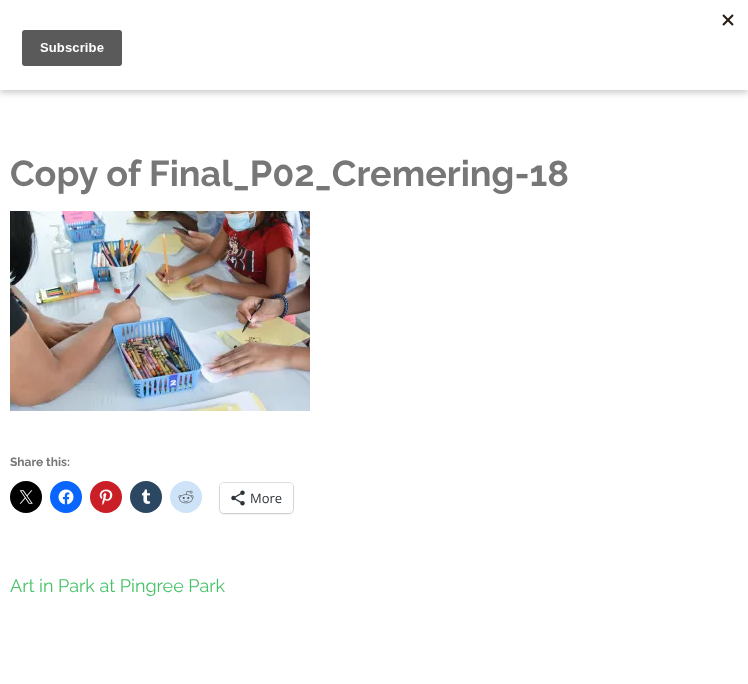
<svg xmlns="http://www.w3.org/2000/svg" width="748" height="684">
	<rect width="100%" height="100%" fill="#FFFFFF" />
	<rect x="0" y="3" width="748" height="90" fill="#000000" fill-opacity="0.2" filter="blur(3px)" />
	<rect x="0" y="0" width="748" height="90" fill="#FFFFFF" />
	<image x="22" y="14" width="712" height="52" href="assets/img1.png" />
	<text x="10" y="186" font-family="Raleway" font-size="36" font-weight="700" fill="#777777">Copy of Final_P02_Cremering-18</text>
	<image x="10" y="211" width="300" height="200" href="assets/img2.png" />
	<text x="10" y="466" font-family="Raleway" font-size="12" font-weight="700" fill="#777777">Share this:</text>
	<circle cx="26" cy="497" r="16" fill="#000000" />
	<image x="19" y="490" width="14" height="14" href="assets/img3.png" />
	<circle cx="66" cy="497" r="16" fill="#0866FF" />
	<image x="58" y="489" width="16" height="16" href="assets/img4.png" />
	<circle cx="106" cy="497" r="16" fill="#CA1F27" />
	<image x="99" y="489" width="14" height="16" href="assets/img5.png" />
	<circle cx="146" cy="497" r="16" fill="#2C4762" />
	<image x="141" y="489" width="10" height="15" href="assets/img6.png" />
	<circle cx="186" cy="497" r="16" fill="#CEE3F8" />
	<image x="178" y="490" width="16" height="14" href="assets/img7.png" />
	<rect x="219.5" y="482.5" width="74" height="31" rx="4.5" fill="none" stroke="#E0E0E0" />
	<rect x="220" y="484" width="73" height="30" rx="4" fill="#000000" fill-opacity="0.12" filter="blur(1px)" />
	<rect x="220" y="483" width="73" height="30" rx="4" fill="#FFFFFF" />
	<image x="231" y="490" width="14" height="16" href="assets/img8.png" />
	<text x="250" y="503" font-family="Open Sans" font-size="13" fill="#2C3338">More</text>
	<text x="10" y="592" font-family="Raleway" font-size="18" fill="#45C267">Art in Park at Pingree Park</text>
</svg>
